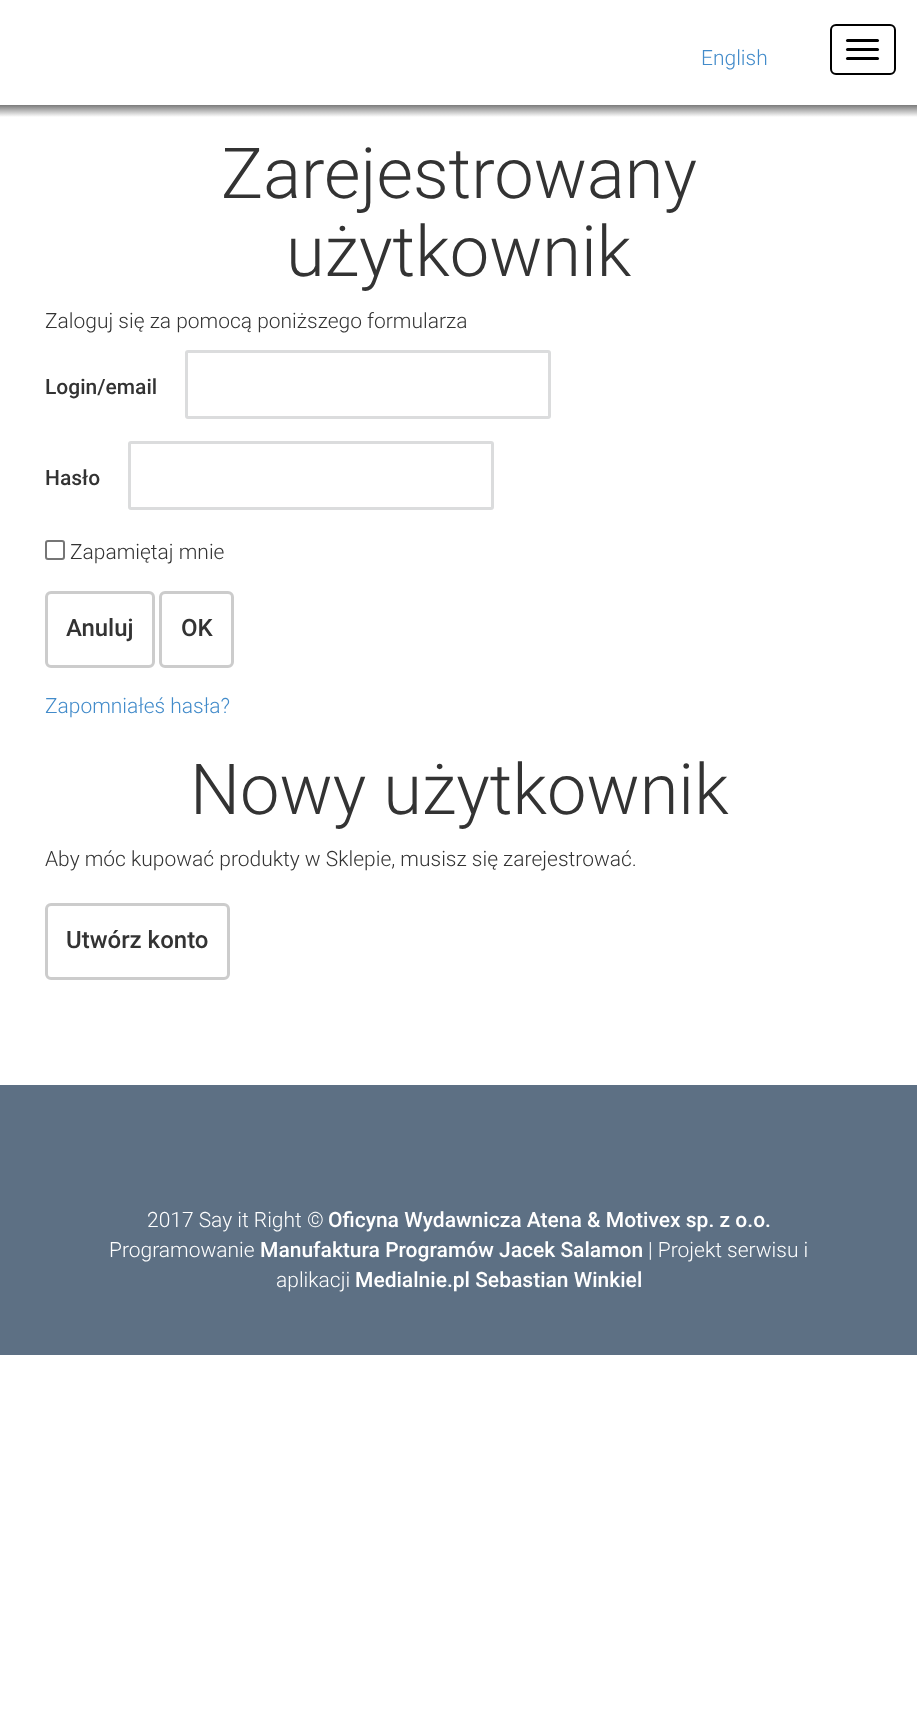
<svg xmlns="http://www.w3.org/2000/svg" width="917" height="1715">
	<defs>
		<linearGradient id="g1" gradientUnits="userSpaceOnUse" x1="459" y1="105" x2="459" y2="117"><stop offset="0" stop-color="#7A7A7A" /><stop offset="1" stop-color="#FFFFFF" /></linearGradient>
	</defs>
	<rect width="100%" height="100%" fill="#FFFFFF" />
	<text x="701" y="65" font-family="Roboto" font-size="21" font-weight="300" fill="#428BCA">English</text>
	<rect x="831" y="25" width="64" height="49" rx="5" fill="none" stroke="#000000" stroke-width="2" />
	<rect x="846" y="39" width="33" height="3" rx="1.5" fill="#000000" />
	<rect x="846" y="48" width="33" height="3" rx="1.5" fill="#000000" />
	<rect x="846" y="57" width="33" height="3" rx="1.5" fill="#000000" />
	<rect x="0" y="105" width="917" height="12" fill="url(#g1)" />
	<g font-family="Roboto" font-size="70.5" font-weight="300" fill="#333333">
		<text x="221" y="198">Zarejestrowany</text>
		<text x="286" y="276">użytkownik</text>
	</g>
	<text x="45" y="328" font-family="Roboto" font-size="21" font-weight="300" fill="#333333">Zaloguj się za pomocą poniższego formularza</text>
	<text x="45" y="394" font-family="Roboto" font-size="21" font-weight="500" fill="#333333">Login/email</text>
	<rect x="186.5" y="351.5" width="363" height="66" rx="1.5" fill="none" stroke="#DBDCDD" stroke-width="3" />
	<text x="45" y="485" font-family="Roboto" font-size="21" font-weight="500" fill="#333333">Hasło</text>
	<rect x="129.5" y="442.5" width="363" height="66" rx="1.5" fill="none" stroke="#DBDCDD" stroke-width="3" />
	<rect x="46" y="541" width="18" height="18" rx="2" fill="none" stroke="#767676" stroke-width="2" />
	<text x="70" y="559" font-family="Roboto" font-size="21" font-weight="300" fill="#333333">Zapamiętaj mnie</text>
	<rect x="46.5" y="592.5" width="107" height="74" rx="4.5" fill="none" stroke="#CCCCCC" stroke-width="3" />
	<text x="66" y="636" font-family="Roboto" font-size="24" font-weight="500" fill="#333333">Anuluj</text>
	<rect x="160.5" y="592.5" width="72" height="74" rx="4.5" fill="none" stroke="#CCCCCC" stroke-width="3" />
	<text x="181" y="636" font-family="Roboto" font-size="24" font-weight="500" fill="#333333">OK</text>
	<text x="45" y="713" font-family="Roboto" font-size="21" font-weight="300" fill="#428BCA">Zapomniałeś hasła?</text>
	<text x="190" y="814" font-family="Roboto" font-size="70.5" font-weight="300" fill="#333333">Nowy użytkownik</text>
	<text x="45" y="866" font-family="Roboto" font-size="21" font-weight="300" fill="#333333">Aby móc kupować produkty w Sklepie, musisz się zarejestrować.</text>
	<rect x="46.5" y="904.5" width="182" height="74" rx="4.5" fill="none" stroke="#CCCCCC" stroke-width="3" />
	<text x="66" y="948" font-family="Roboto" font-size="24" font-weight="500" fill="#333333">Utwórz konto</text>
	<rect x="0" y="1085" width="917" height="270" fill="#5D7084" />
	<text x="147" y="1227" font-family="Roboto" font-size="21" font-weight="300" fill="#FFFFFF">2017 Say it Right ©</text>
	<text x="328" y="1227" font-family="Roboto" font-size="21" font-weight="500" fill="#FFFFFF">Oficyna Wydawnicza Atena &amp; Motivex sp. z o.o.</text>
	<text x="109" y="1257" font-family="Roboto" font-size="21" font-weight="300" fill="#FFFFFF">Programowanie</text>
	<text x="260" y="1257" font-family="Roboto" font-size="21" font-weight="500" fill="#FFFFFF">Manufaktura Programów Jacek Salamon</text>
	<g font-family="Roboto" font-size="21" font-weight="300" fill="#FFFFFF">
		<text x="648" y="1257">| Projekt serwisu i</text>
		<text x="276" y="1287">aplikacji</text>
	</g>
	<text x="355" y="1287" font-family="Roboto" font-size="21" font-weight="500" fill="#FFFFFF">Medialnie.pl Sebastian Winkiel</text>
</svg>
